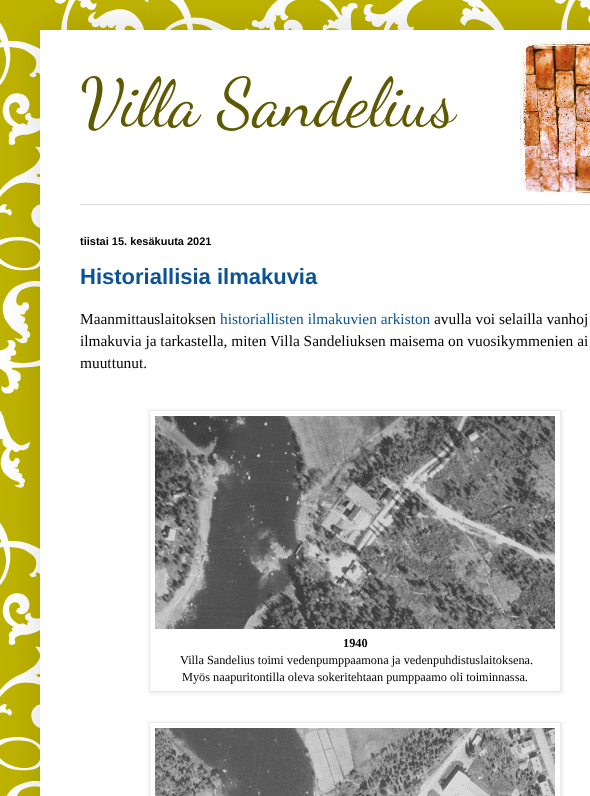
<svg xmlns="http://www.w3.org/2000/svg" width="590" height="796">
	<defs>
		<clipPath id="clip1"><path d="M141 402H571V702H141ZM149 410H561V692H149Z" clip-rule="evenodd" /></clipPath>
		<clipPath id="clip2"><path d="M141 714H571V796H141ZM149 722H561V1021H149Z" clip-rule="evenodd" /></clipPath>
	</defs>
	<rect width="100%" height="100%" fill="#FFFFFF" />
	<image x="0" y="0" width="590" height="796" href="assets/img1.png" />
	<rect x="40" y="30" width="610" height="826" fill="#000000" fill-opacity="0.15" filter="blur(20px)" />
	<rect x="40" y="30" width="550" height="766" fill="#FFFFFF" />
	<image x="520" y="41" width="70" height="154" href="assets/img2.png" />
	<text x="80" y="125" font-family="Dancing Script" font-size="68" fill="#5F5900">Villa Sandelius</text>
	<rect x="80" y="204" width="510" height="1" fill="#DEDEDE" />
	<text x="80" y="245" font-family="Liberation Sans" font-size="11" font-weight="700" fill="#000000">tiistai 15. kesäkuuta 2021</text>
	<text x="80" y="284" font-family="Liberation Sans" font-size="22" font-weight="700" fill="#0B5394">Historiallisia ilmakuvia</text>
	<text x="80" y="324" font-family="Liberation Serif" font-size="15.4" fill="#000000">Maanmittauslaitoksen</text>
	<text x="220" y="324" font-family="Liberation Serif" font-size="15.4" fill="#0B5394">historiallisten ilmakuvien arkiston</text>
	<g font-family="Liberation Serif" font-size="15.4" fill="#000000">
		<text x="434" y="324">avulla voi selailla vanhoj</text>
		<text x="80" y="346">ilmakuvia ja tarkastella, miten Villa Sandeliuksen maisema on vuosikymmenien ai</text>
		<text x="80" y="368">muuttunut.</text>
	</g>
	<g clip-path="url(#clip1)">
		<rect x="150" y="411" width="412" height="282" fill="#000000" fill-opacity="0.1" filter="blur(2.5px)" />
	</g>
	<rect x="149.5" y="410.5" width="411" height="281" fill="none" stroke="#EAEAEA" />
	<image x="155" y="416" width="400" height="213" href="assets/img3.png" />
	<text x="343" y="647" font-family="Liberation Serif" font-size="12.3" font-weight="700" fill="#000000">1940</text>
	<g font-family="Liberation Serif" font-size="12.3" fill="#000000">
		<text x="180" y="664">Villa Sandelius toimi vedenpumppaamona ja vedenpuhdistuslaitoksena.</text>
		<text x="182" y="681">Myös naapuritontilla oleva sokeritehtaan pumppaamo oli toiminnassa.</text>
	</g>
	<g clip-path="url(#clip2)">
		<rect x="150" y="723" width="412" height="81" fill="#000000" fill-opacity="0.1" filter="blur(2.5px)" />
	</g>
	<rect x="149.5" y="722.5" width="411" height="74" fill="none" stroke="#EAEAEA" />
	<image x="155" y="728" width="400" height="68" href="assets/img4.png" />
</svg>
